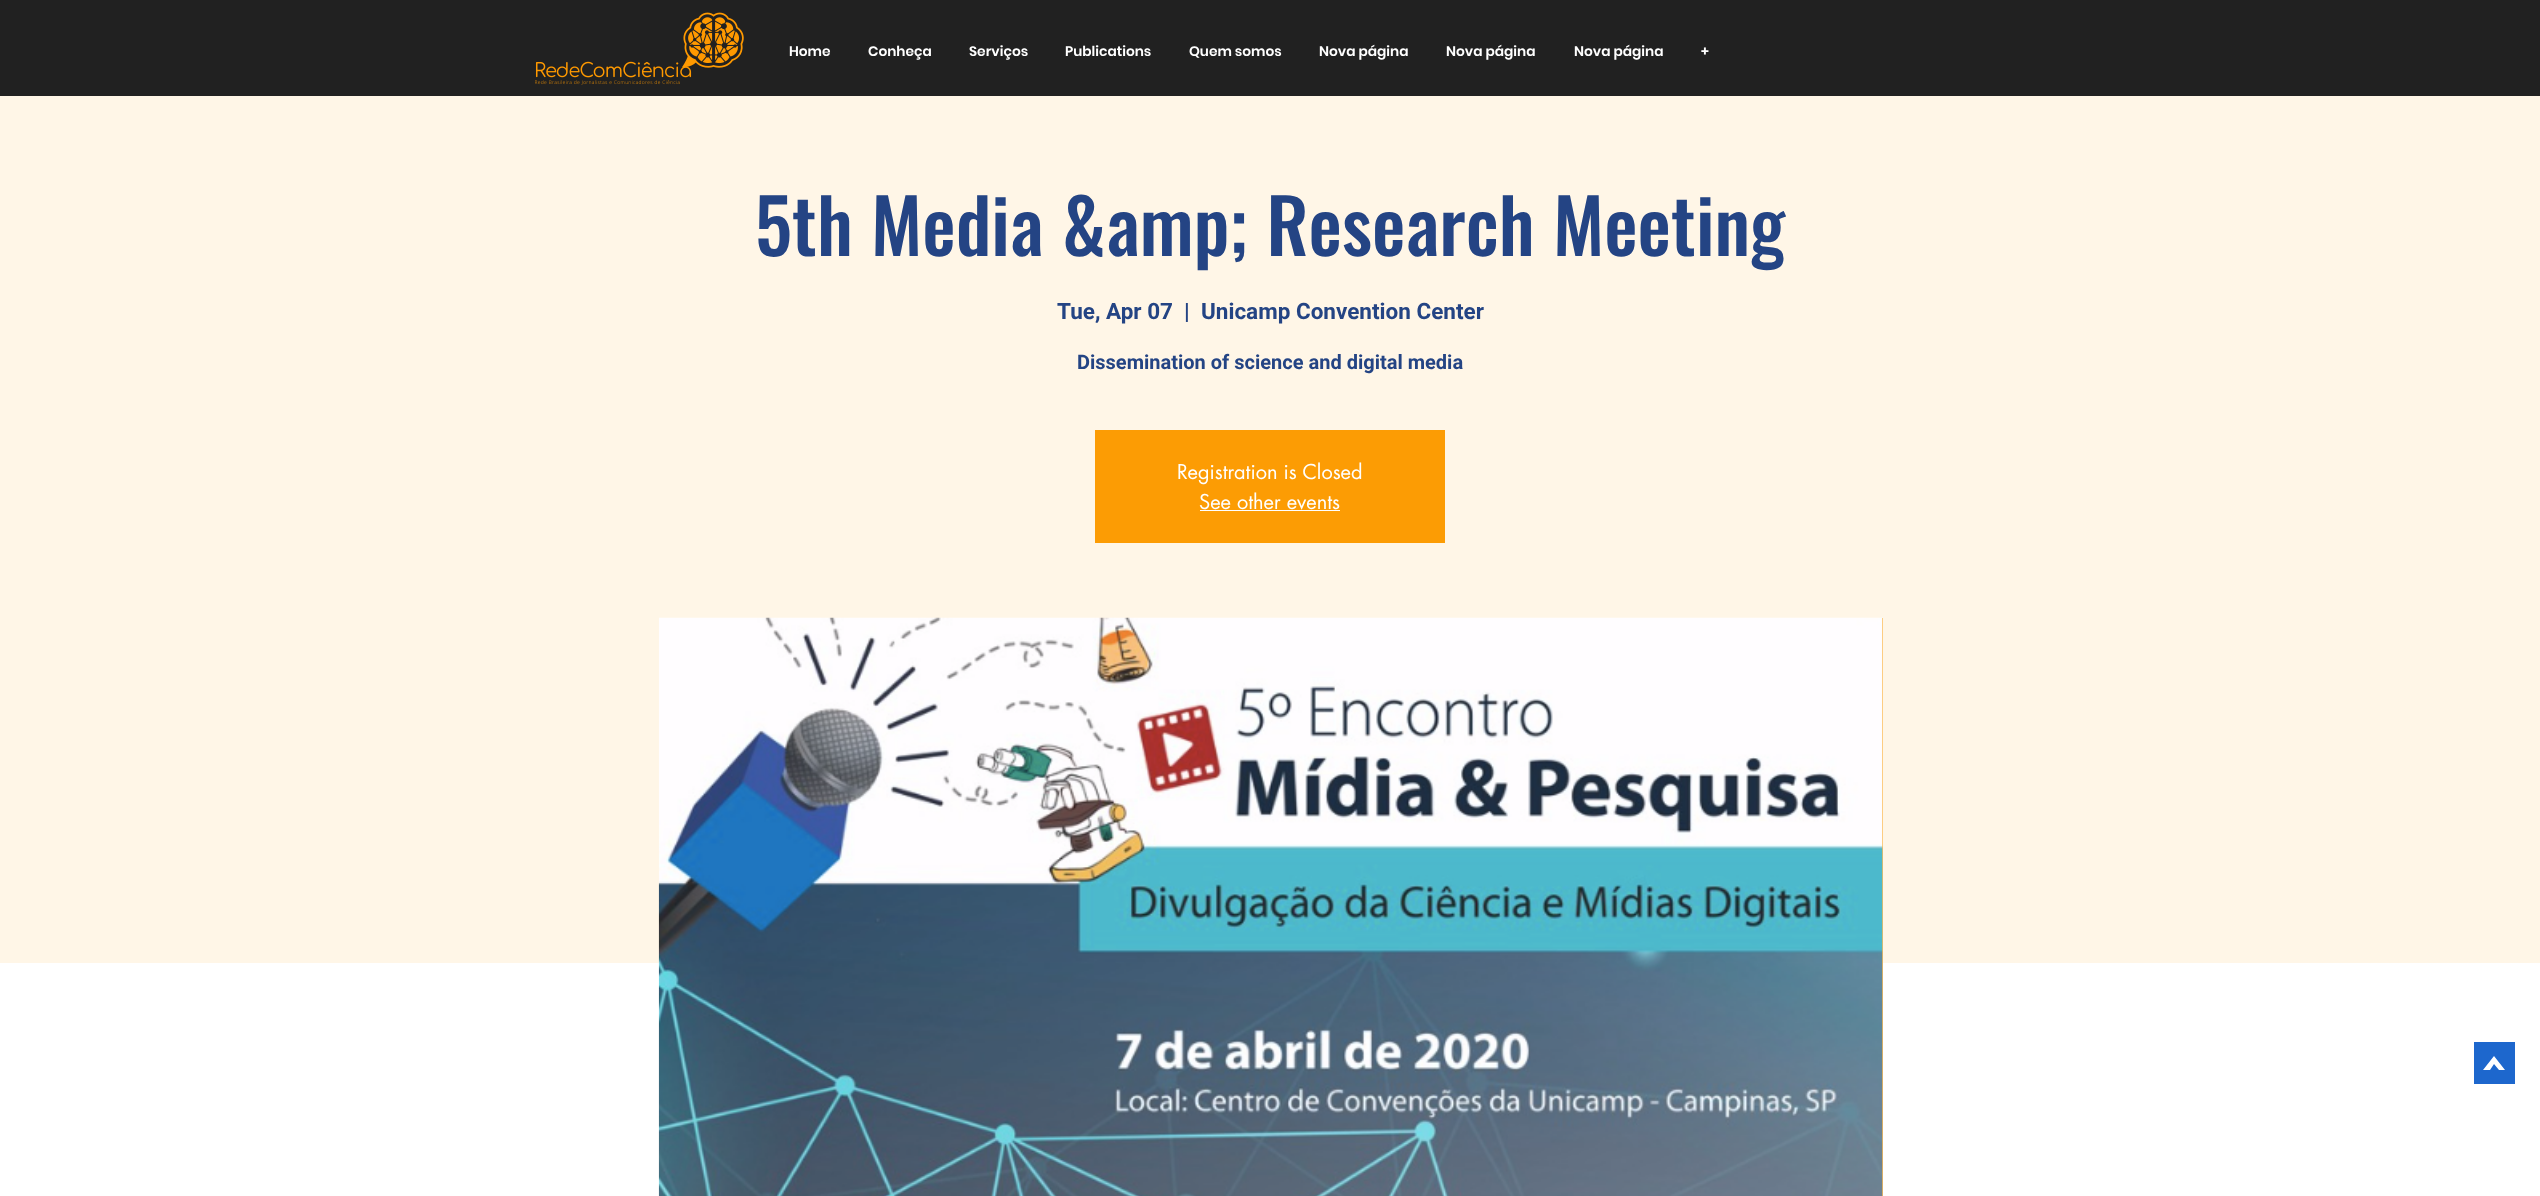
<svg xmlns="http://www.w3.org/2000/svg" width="2540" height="1196">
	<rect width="100%" height="100%" fill="#FFFFFF" />
	<rect x="0" y="0" width="2540" height="96" fill="#212121" />
	<image x="535" y="12" width="209" height="73" href="assets/img1.png" />
	<g font-family="Poppins" font-size="13.75" font-weight="600" fill="#FFFFFF">
		<text x="789" y="56">Home</text>
		<text x="868" y="56">Conheça</text>
		<text x="969" y="56">Serviços</text>
		<text x="1065" y="56">Publications</text>
		<text x="1189" y="56">Quem somos</text>
		<text x="1319" y="56">Nova página</text>
		<text x="1446" y="56">Nova página</text>
		<text x="1574" y="56">Nova página</text>
		<text x="1701" y="56">+</text>
	</g>
	<rect x="0" y="96" width="2540" height="867" fill="#FFF6E7" />
	<text x="755" y="256" font-family="Oswald" font-size="75" font-weight="500" fill="#244484">5th Media &amp;amp; Research Meeting</text>
	<g font-family="Roboto" font-size="22.5" font-weight="700" fill="#244484">
		<text x="1057" y="319">Tue, Apr 07</text>
		<text x="1184" y="319">|</text>
		<text x="1201" y="319">Unicamp Convention Center</text>
	</g>
	<text x="1077" y="369" font-family="Roboto" font-size="20" font-weight="700" fill="#244484">Dissemination of science and digital media</text>
	<rect x="1095" y="430" width="350" height="113" fill="#FC9C04" />
	<g font-family="futura" font-size="20" fill="#FFFFFF">
		<text x="1177" y="479">Registration is Closed</text>
		<text x="1199" y="509">See other events</text>
	</g>
	<rect x="1200" y="510" width="140" height="1" fill="#FFFFFF" />
	<rect x="1882" y="618" width="1" height="578" fill="#FDBD58" />
	<image x="658" y="617" width="1225" height="579" href="assets/img2.png" />
	<path d="M2474 1042V1084H2515V1042ZM2499 1070L2494 1064L2490 1070H2483L2494 1056L2505 1070Z" fill="#1D67CD" />
</svg>
